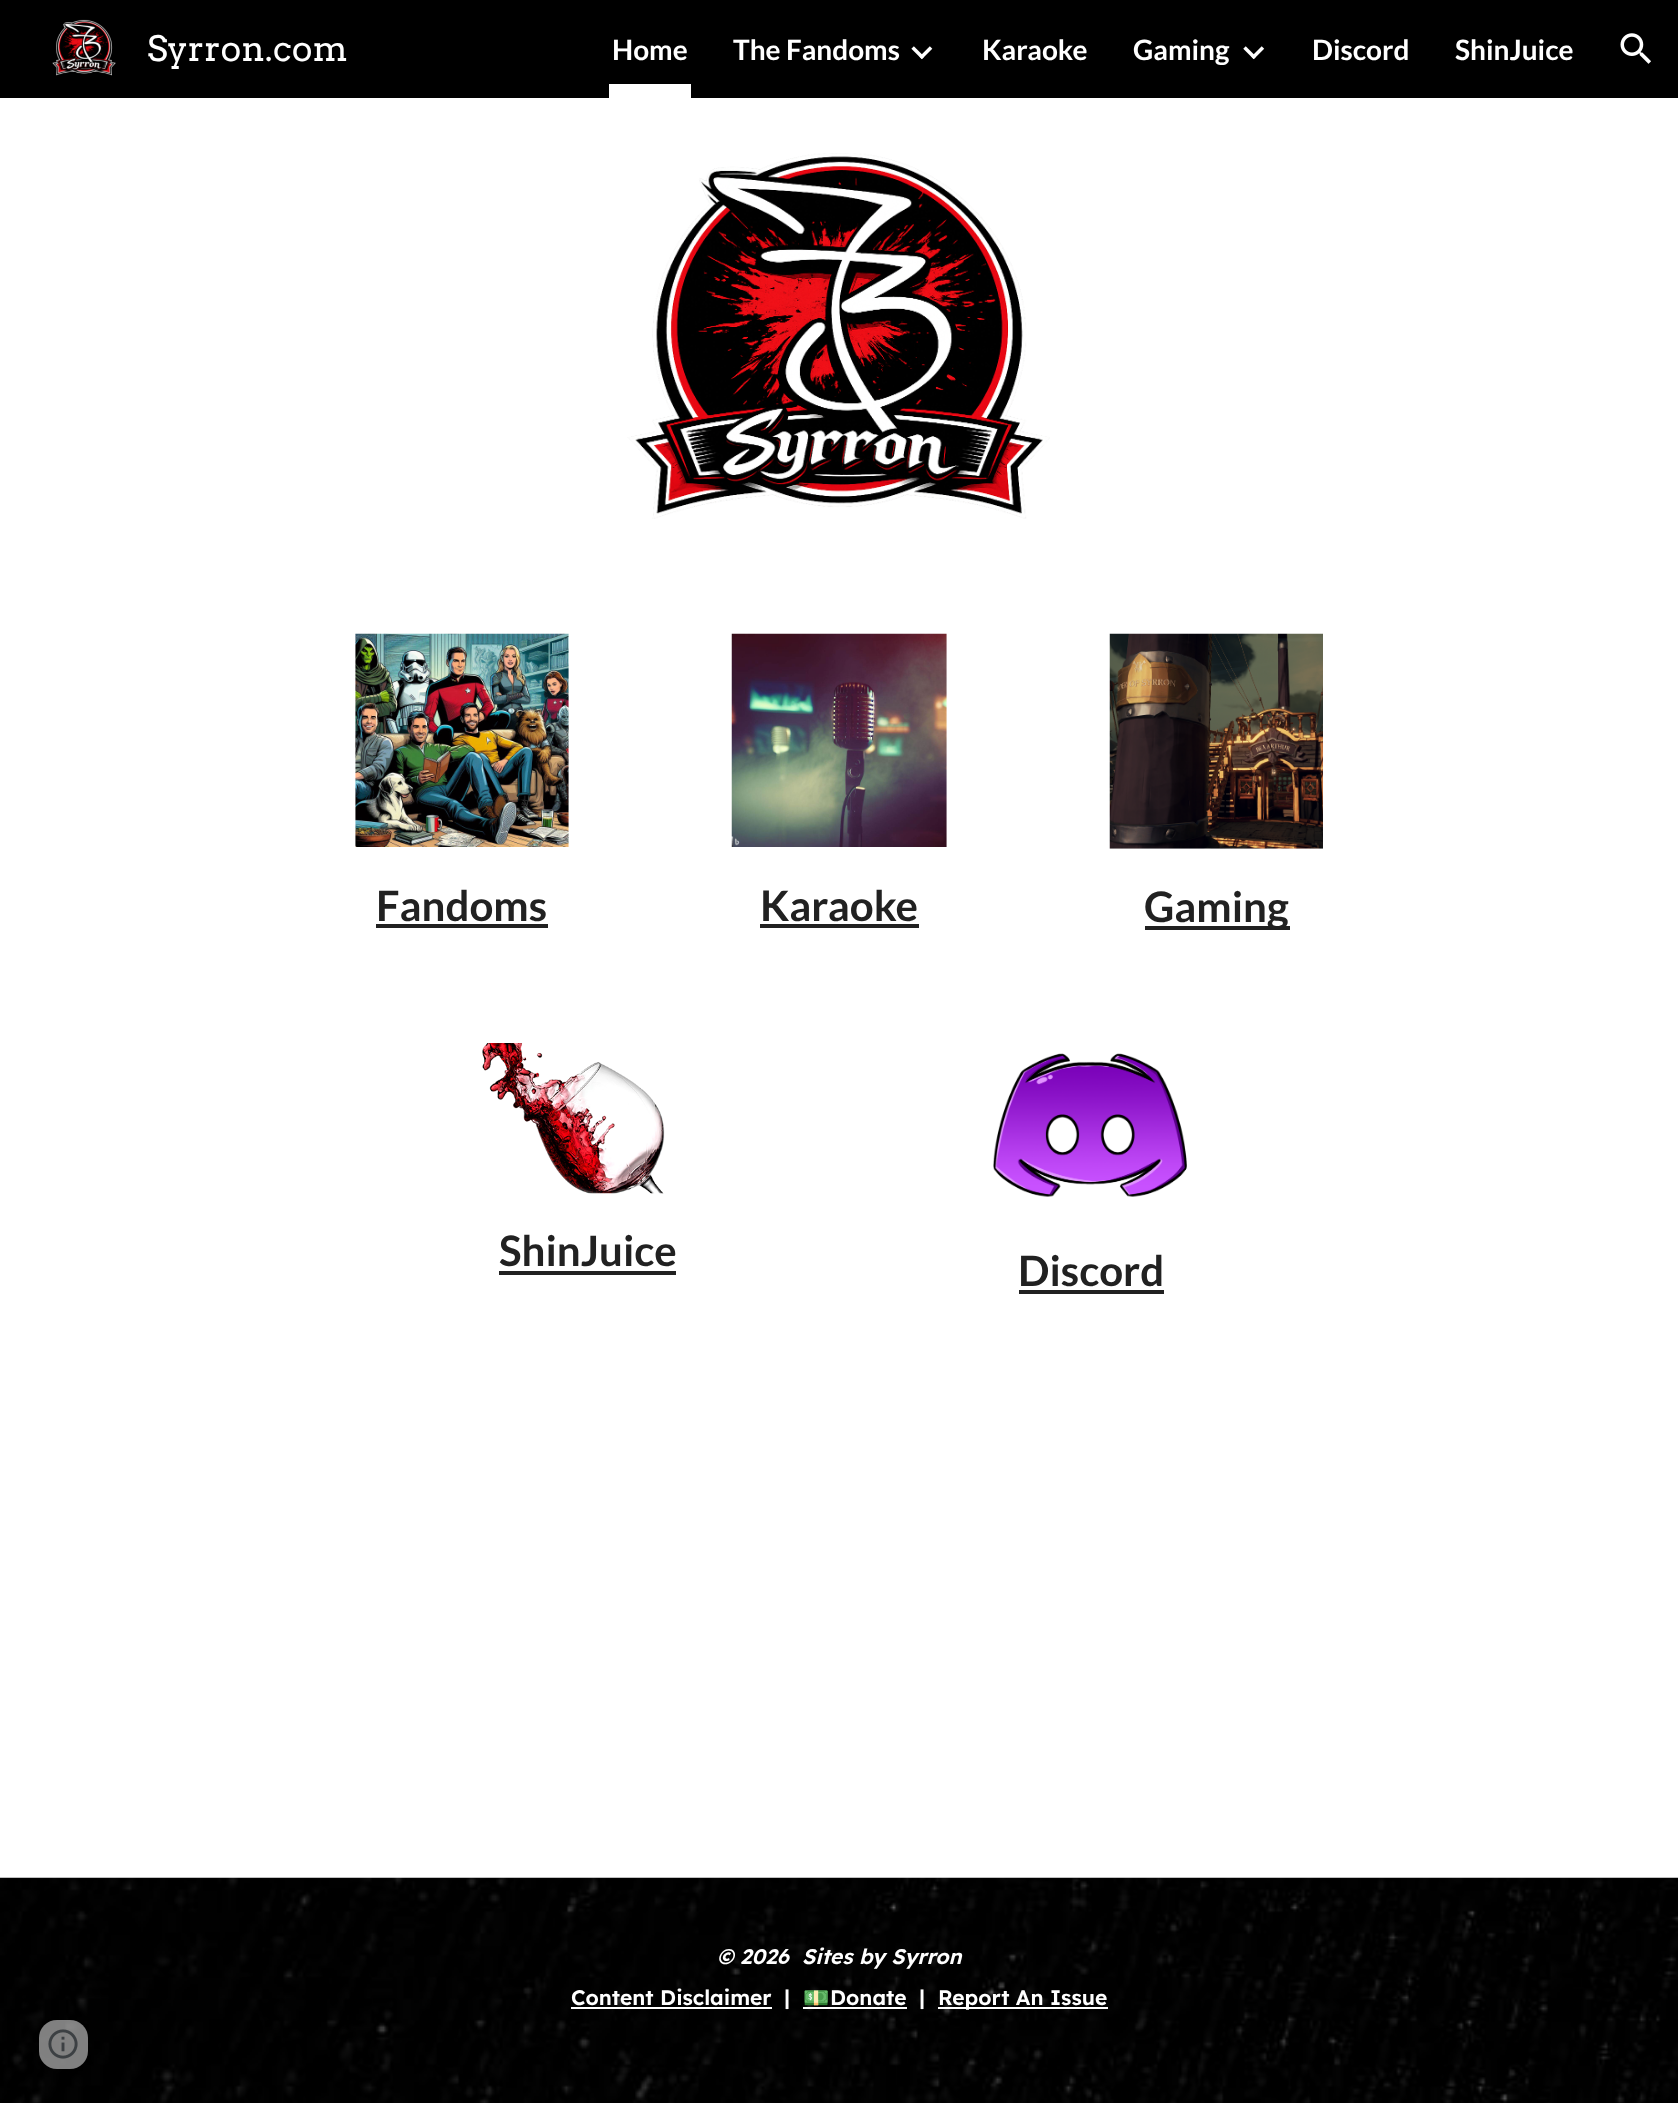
<svg xmlns="http://www.w3.org/2000/svg" width="1678" height="2103">
	<rect width="100%" height="100%" fill="#FFFFFF" />
	<rect x="0" y="0" width="1678" height="98" fill="#000000" />
	<image x="52" y="19" width="64" height="57" href="assets/img1.png" />
	<text x="147" y="61" font-family="Arvo" font-size="35" fill="#FFFFFF">Syrron.com</text>
	<rect x="609" y="84" width="82" height="14" fill="#FFFFFF" />
	<g font-family="Lato" font-size="28" font-weight="700" fill="#FFFFFF">
		<text x="612" y="60">Home</text>
		<text x="733" y="60">The Fandoms</text>
	</g>
	<image x="911" y="46" width="22" height="14" href="assets/img2.png" />
	<g font-family="Lato" font-size="28" font-weight="700" fill="#FFFFFF">
		<text x="982" y="60">Karaoke</text>
		<text x="1133" y="60">Gaming</text>
	</g>
	<image x="1243" y="46" width="22" height="14" href="assets/img3.png" />
	<g font-family="Lato" font-size="28" font-weight="700" fill="#FFFFFF">
		<text x="1312" y="60">Discord</text>
		<text x="1455" y="60">ShinJuice</text>
	</g>
	<image x="1620" y="33" width="31" height="31" href="assets/img4.png" />
	<image x="627" y="153" width="423" height="366" href="assets/img5.png" />
	<image x="355" y="633" width="214" height="214" href="assets/img6.png" />
	<text x="376" y="921" font-family="Lato" font-size="42" font-weight="700" fill="#212121">Fandoms</text>
	<rect x="376" y="924" width="172" height="4" fill="#212121" />
	<image x="731" y="633" width="216" height="214" href="assets/img7.png" />
	<text x="760" y="921" font-family="Lato" font-size="42" font-weight="700" fill="#212121">Karaoke</text>
	<rect x="760" y="924" width="159" height="4" fill="#212121" />
	<image x="1109" y="633" width="214" height="216" href="assets/img8.png" />
	<rect x="1145" y="926" width="145" height="4" fill="#212121" />
	<text x="1144" y="922" font-family="Lato" font-size="42" font-weight="700" fill="#212121">Gaming</text>
	<image x="482" y="1043" width="183" height="151" href="assets/img9.png" />
	<text x="499" y="1266" font-family="Lato" font-size="42" font-weight="700" fill="#212121">ShinJuice</text>
	<rect x="499" y="1271" width="177" height="4" fill="#212121" />
	<image x="993" y="1053" width="194" height="144" href="assets/img10.png" />
	<text x="1018" y="1286" font-family="Lato" font-size="42" font-weight="700" fill="#212121">Discord</text>
	<rect x="1019" y="1290" width="145" height="4" fill="#212121" />
	<image x="0" y="1877" width="1678" height="226" href="assets/img11.png" />
	<g font-family="Lexend" font-size="21" font-weight="600" font-style="italic" fill="#FFFFFF">
		<text x="717" y="1964">© 2026</text>
		<text x="802" y="1964">Sites by Syrron</text>
	</g>
	<text x="571" y="2005" font-family="Lexend" font-size="21" font-weight="600" fill="#FFFFFF">Content Disclaimer</text>
	<rect x="571" y="2007" width="201" height="2" fill="#FFFFFF" />
	<text x="784" y="2005" font-family="Lexend" font-size="21" font-weight="600" fill="#FFFFFF">|</text>
	<rect x="803" y="2007" width="104" height="2" fill="#FFFFFF" />
	<text x="803" y="2005" font-family="Noto Color Emoji" font-size="21" font-weight="700" fill="#FFFFFF">💵</text>
	<g font-family="Lexend" font-size="21" font-weight="600" fill="#FFFFFF">
		<text x="830" y="2005">Donate</text>
		<text x="919" y="2005">|</text>
	</g>
	<rect x="938" y="2007" width="170" height="2" fill="#FFFFFF" />
	<text x="938" y="2005" font-family="Lexend" font-size="21" font-weight="600" fill="#FFFFFF">Report An Issue</text>
	<rect x="39" y="2020" width="49" height="49" rx="18" fill="#FFFFFF" fill-opacity="0.5" />
	<image x="48" y="2029" width="30" height="30" href="assets/img12.png" />
</svg>
